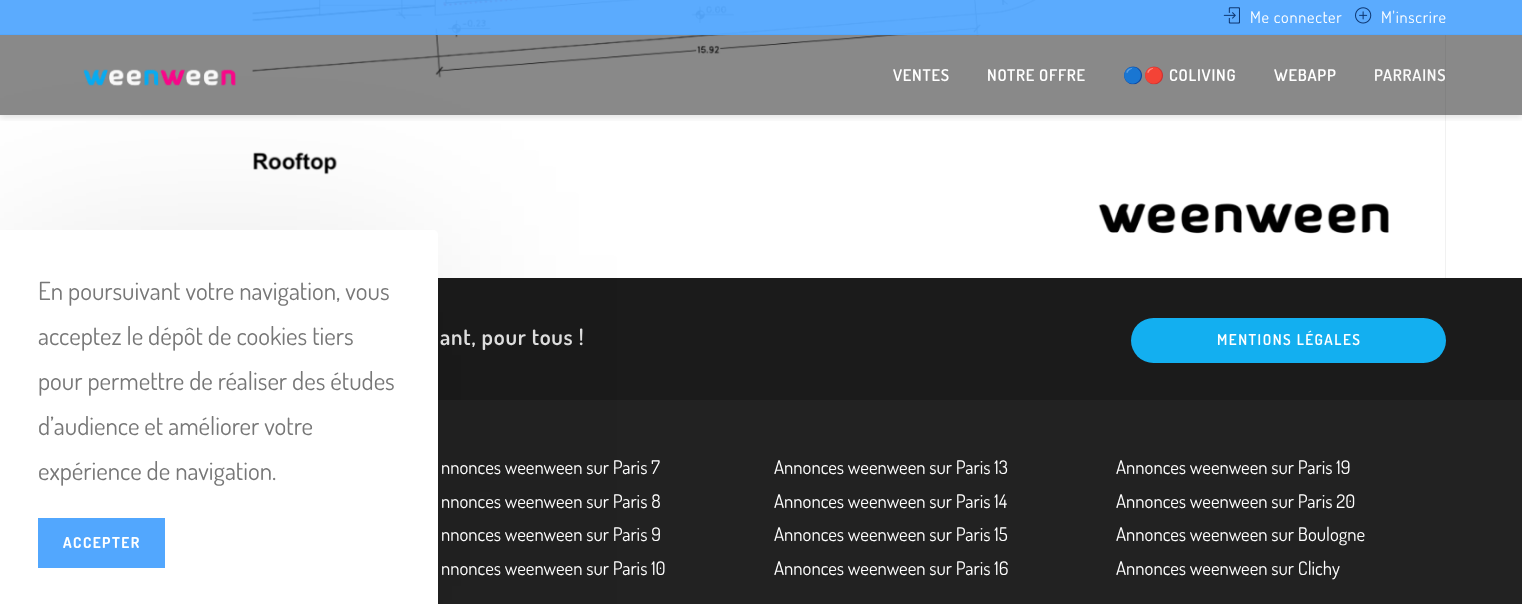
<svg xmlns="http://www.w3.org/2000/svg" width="1522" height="604">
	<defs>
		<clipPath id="clip1"><rect x="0" y="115" width="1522" height="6" /></clipPath>
	</defs>
	<rect width="100%" height="100%" fill="#FFFFFF" />
	<image x="251" y="0" width="1138" height="234" href="assets/img1.png" />
	<rect x="1445" y="0" width="1" height="278" fill="#F1F1F1" />
	<g clip-path="url(#clip1)">
		<rect x="0" y="38" width="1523" height="80" fill="#000000" fill-opacity="0.1" filter="blur(3px)" />
	</g>
	<rect x="0" y="0" width="1522" height="35" fill="#52A7FE" fill-opacity="0.95" />
	<rect x="0" y="34" width="1522" height="1" fill="#52A7FE" fill-opacity="0.95" />
	<rect x="0" y="35" width="1522" height="80" fill="#050505" fill-opacity="0.47" />
	<image x="83" y="69" width="153" height="17" href="assets/img4.png" />
	<rect x="438" y="278" width="1084" height="122" fill="#1B1B1B" />
	<rect x="438" y="400" width="1084" height="204" fill="#222222" />
	<rect x="0" y="255" width="438" height="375" rx="5" fill="#000000" fill-opacity="0.1" filter="blur(94px)" />
	<path d="M0 230H433C436 230 438 232 438 235V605H0Z" fill="#FFFFFF" />
	<g font-family="Dosis" font-size="25" fill="#777777">
		<text x="38" y="300">En poursuivant votre navigation, vous</text>
		<text x="38" y="345">acceptez le dépôt de cookies tiers</text>
		<text x="38" y="390">pour permettre de réaliser des études</text>
		<text x="38" y="435">d’audience et améliorer votre</text>
		<text x="38" y="480">expérience de navigation.</text>
	</g>
	<rect x="38" y="518" width="127" height="50" fill="#52A7FE" />
	<text x="63" y="548" font-family="Dosis" font-size="15" font-weight="700" letter-spacing="1.5" fill="#FFFFFF">ACCEPTER</text>
	<image x="1223" y="7" width="17" height="17" href="assets/img2.png" />
	<text x="1250" y="23" font-family="Dosis" font-size="16.25" letter-spacing="0.75" fill="#FFFFFF">Me connecter</text>
	<image x="1355" y="7" width="17" height="17" href="assets/img3.png" />
	<text x="1381" y="23" font-family="Dosis" font-size="16.25" letter-spacing="0.75" fill="#FFFFFF">M'inscrire</text>
	<g font-family="Dosis" font-size="16.25" font-weight="600" letter-spacing="0.75" fill="#FFFFFF">
		<text x="893" y="81">VENTES</text>
		<text x="987" y="81">NOTRE OFFRE</text>
	</g>
	<text x="1123" y="81" font-family="Noto Color Emoji" font-size="16.25" font-weight="700" letter-spacing="0.75" fill="#FFFFFF">🔵🔴</text>
	<g font-family="Dosis" font-size="16.25" font-weight="600" letter-spacing="0.75" fill="#FFFFFF">
		<text x="1169" y="81">COLIVING</text>
		<text x="1274" y="81">WEBAPP</text>
	</g>
	<text x="1374" y="81" font-family="Dosis" font-size="16.25" font-weight="600" letter-spacing="0.75" fill="#F9F9F9">PARRAINS</text>
	<text x="440" y="345" font-family="Dosis" font-size="22.5" font-weight="600" letter-spacing="0.75" fill="#DDDDDD">ant, pour tous !</text>
	<rect x="1131" y="318" width="315" height="45" rx="22.5" fill="#13AFF0" />
	<text x="1217" y="345" font-family="Dosis" font-size="15" font-weight="600" letter-spacing="1.5" fill="#FFFFFF">MENTIONS LÉGALES</text>
	<g font-family="Dosis" font-size="18.75" fill="#FFFFFF">
		<text x="441" y="474">nnonces weenween sur Paris 7</text>
		<text x="441" y="508">nnonces weenween sur Paris 8</text>
		<text x="441" y="541">nnonces weenween sur Paris 9</text>
		<text x="441" y="575">nnonces weenween sur Paris 10</text>
		<text x="774" y="474">Annonces weenween sur Paris 13</text>
		<text x="774" y="508">Annonces weenween sur Paris 14</text>
		<text x="774" y="541">Annonces weenween sur Paris 15</text>
		<text x="774" y="575">Annonces weenween sur Paris 16</text>
		<text x="1116" y="474">Annonces weenween sur Paris 19</text>
		<text x="1116" y="508">Annonces weenween sur Paris 20</text>
		<text x="1116" y="541">Annonces weenween sur Boulogne</text>
		<text x="1116" y="575">Annonces weenween sur Clichy</text>
	</g>
</svg>
